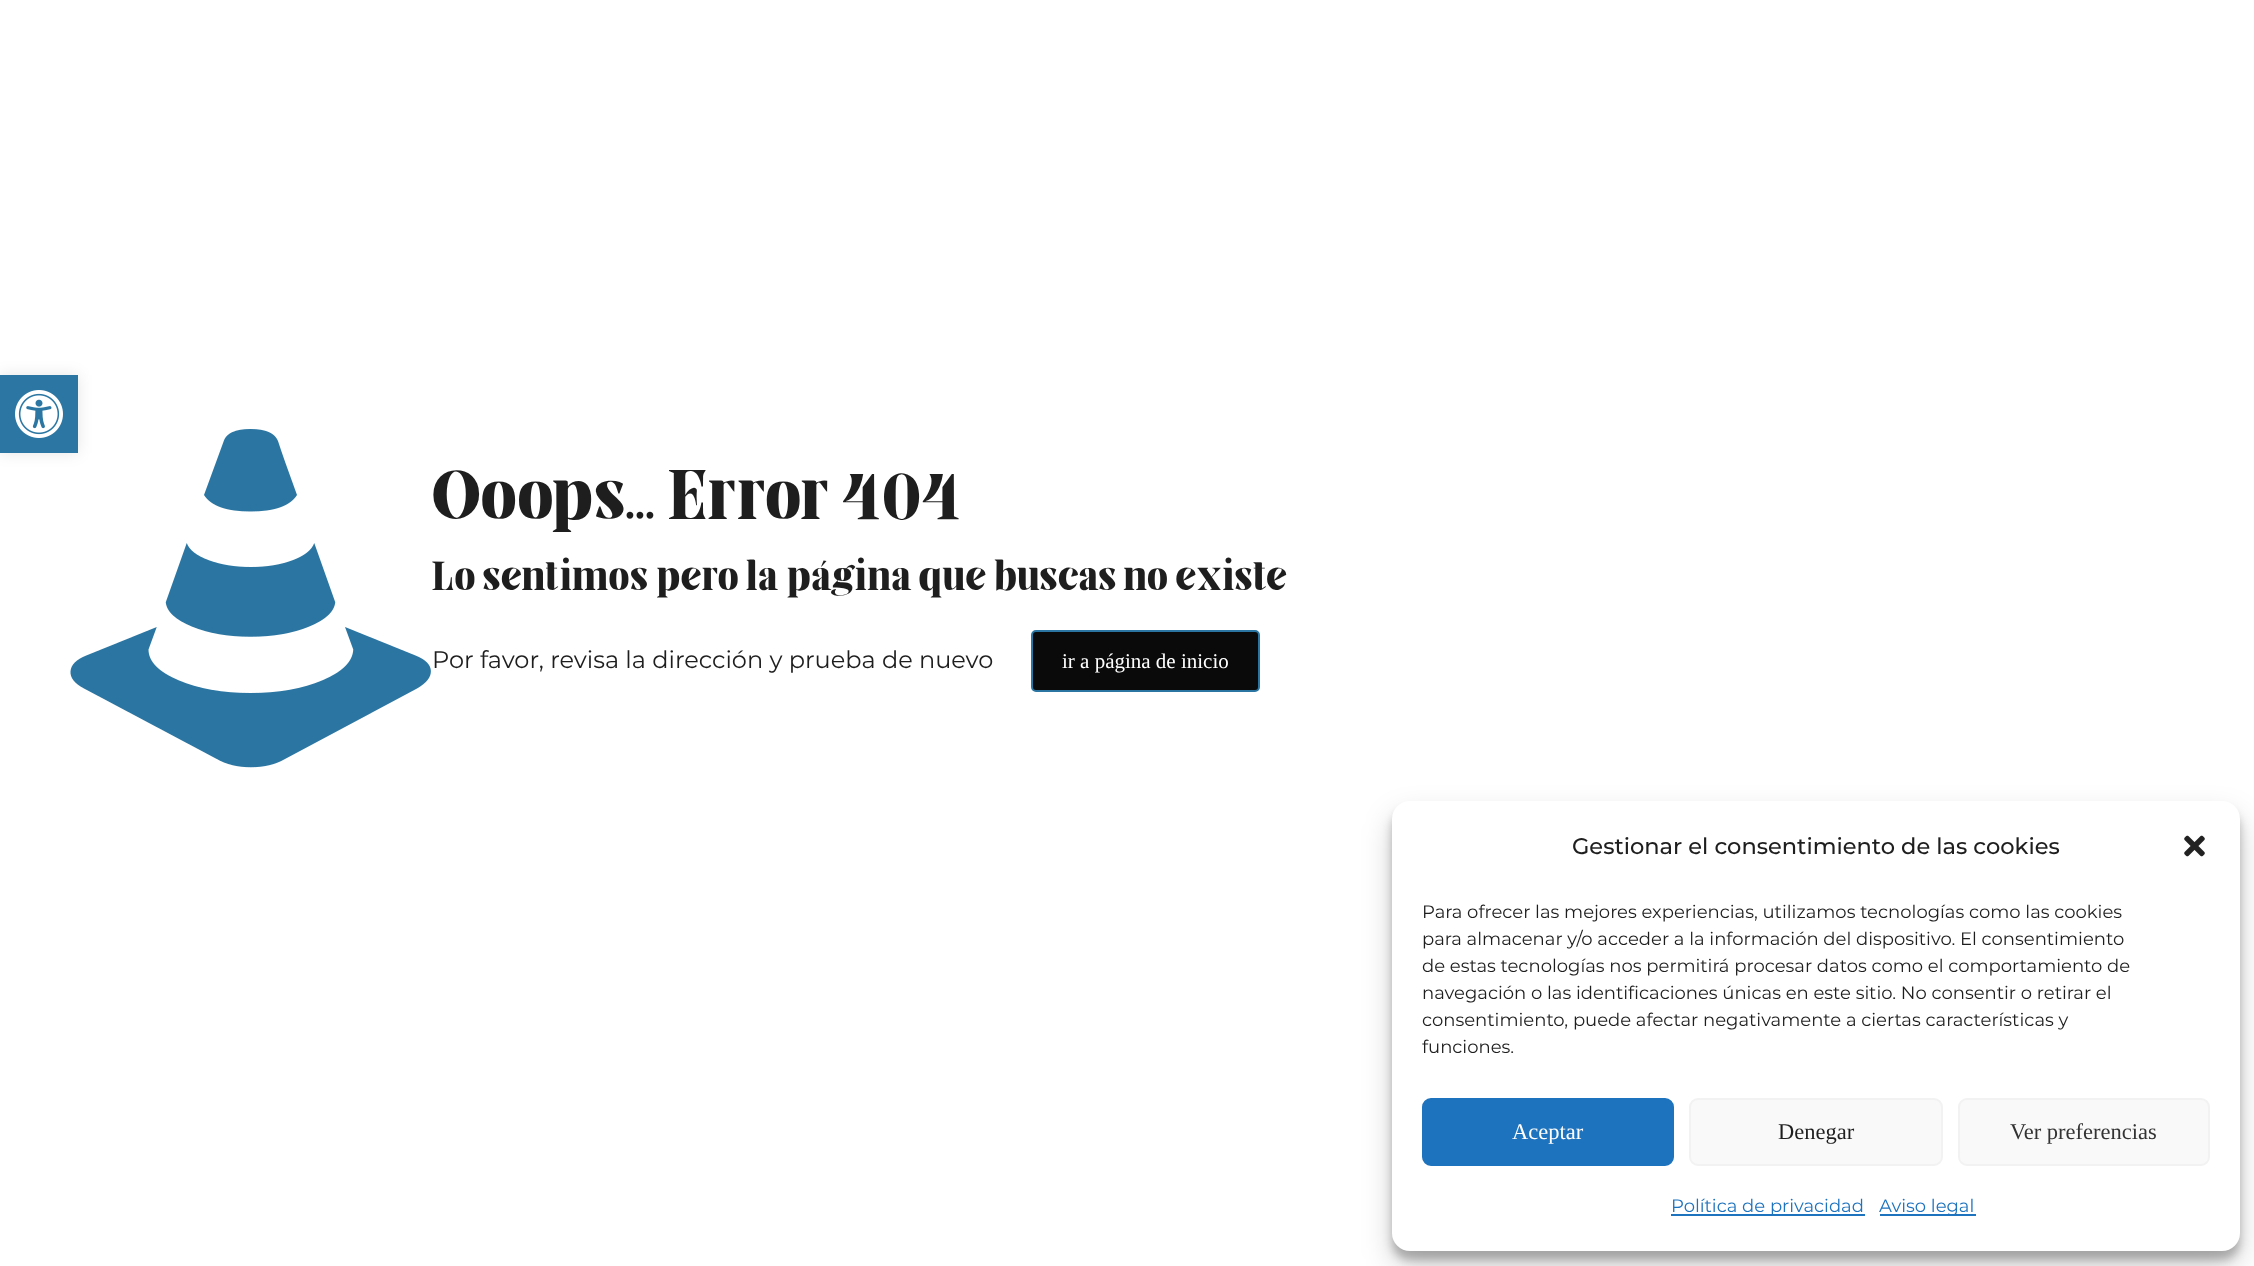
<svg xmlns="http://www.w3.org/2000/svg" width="2254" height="1266">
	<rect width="100%" height="100%" fill="#FFFFFF" />
	<image x="70" y="429" width="361" height="339" href="assets/img2.png" />
	<rect x="0" y="375" width="78" height="78" fill="#000000" fill-opacity="0.1" filter="blur(7.5px)" />
	<rect x="0" y="375" width="78" height="78" fill="#2B76A2" />
	<image x="15" y="390" width="48" height="48" href="assets/img1.png" />
	<text x="432" y="519" font-family="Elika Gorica" font-size="67.5" fill="#1E1E1E">Ooops... Error 404</text>
	<text x="432" y="590" font-family="Elika Gorica" font-size="39" fill="#1E1E1E">Lo sentimos pero la página que buscas no existe</text>
	<text x="432" y="668" font-family="Montserrat" font-size="24" fill="#1E1E1E">Por favor, revisa la dirección y prueba de nuevo</text>
	<rect x="1032" y="631" width="227" height="60" rx="4" fill="#0A0A0A" stroke="#2A75A1" stroke-width="2" />
	<text x="1062" y="668" font-family="Liberation Serif" font-size="21" fill="#FFFFFF">ir a página de inicio</text>
	<rect x="1392" y="810" width="848" height="450" rx="18" fill="#000000" fill-opacity="0.23" filter="blur(4.5px)" />
	<rect x="1392" y="816" width="848" height="450" rx="18" fill="#000000" fill-opacity="0.19" filter="blur(15px)" />
	<rect x="1392" y="801" width="848" height="450" rx="18" fill="#FFFFFF" />
	<text x="1572" y="854" font-family="Montserrat" font-size="22.5" font-weight="500" fill="#1E1E1E">Gestionar el consentimiento de las cookies</text>
	<image x="2184" y="835" width="21" height="22" href="assets/img3.png" />
	<g font-family="Montserrat" font-size="18" fill="#1E1E1E">
		<text x="1422" y="918">Para ofrecer las mejores experiencias, utilizamos tecnologías como las cookies</text>
		<text x="1422" y="945">para almacenar y/o acceder a la información del dispositivo. El consentimiento</text>
		<text x="1422" y="972">de estas tecnologías nos permitirá procesar datos como el comportamiento de</text>
		<text x="1422" y="999">navegación o las identificaciones únicas en este sitio. No consentir o retirar el</text>
		<text x="1422" y="1026">consentimiento, puede afectar negativamente a ciertas características y</text>
		<text x="1422" y="1053">funciones.</text>
	</g>
	<rect x="1423" y="1099" width="250" height="66" rx="8" fill="#1E73BE" stroke="#1E73BE" stroke-width="2" />
	<text x="1512" y="1139" font-family="Liberation Serif" font-size="22.5" fill="#FFFFFF">Aceptar</text>
	<rect x="1690" y="1099" width="252" height="66" rx="8" fill="#F9F9F9" stroke="#F2F2F2" stroke-width="2" />
	<text x="1778" y="1139" font-family="Liberation Serif" font-size="22.5" fill="#1E1E1E">Denegar</text>
	<rect x="1959" y="1099" width="250" height="66" rx="8" fill="#F9F9F9" stroke="#F2F2F2" stroke-width="2" />
	<text x="2010" y="1139" font-family="Liberation Serif" font-size="22.5" fill="#333333">Ver preferencias</text>
	<rect x="1671" y="1214" width="194" height="2" fill="#1E73BE" />
	<text x="1671" y="1212" font-family="Montserrat" font-size="18" fill="#1E73BE">Política de privacidad</text>
	<rect x="1880" y="1214" width="96" height="2" fill="#1E73BE" />
	<text x="1879" y="1212" font-family="Montserrat" font-size="18" fill="#1E73BE">Aviso legal</text>
</svg>
